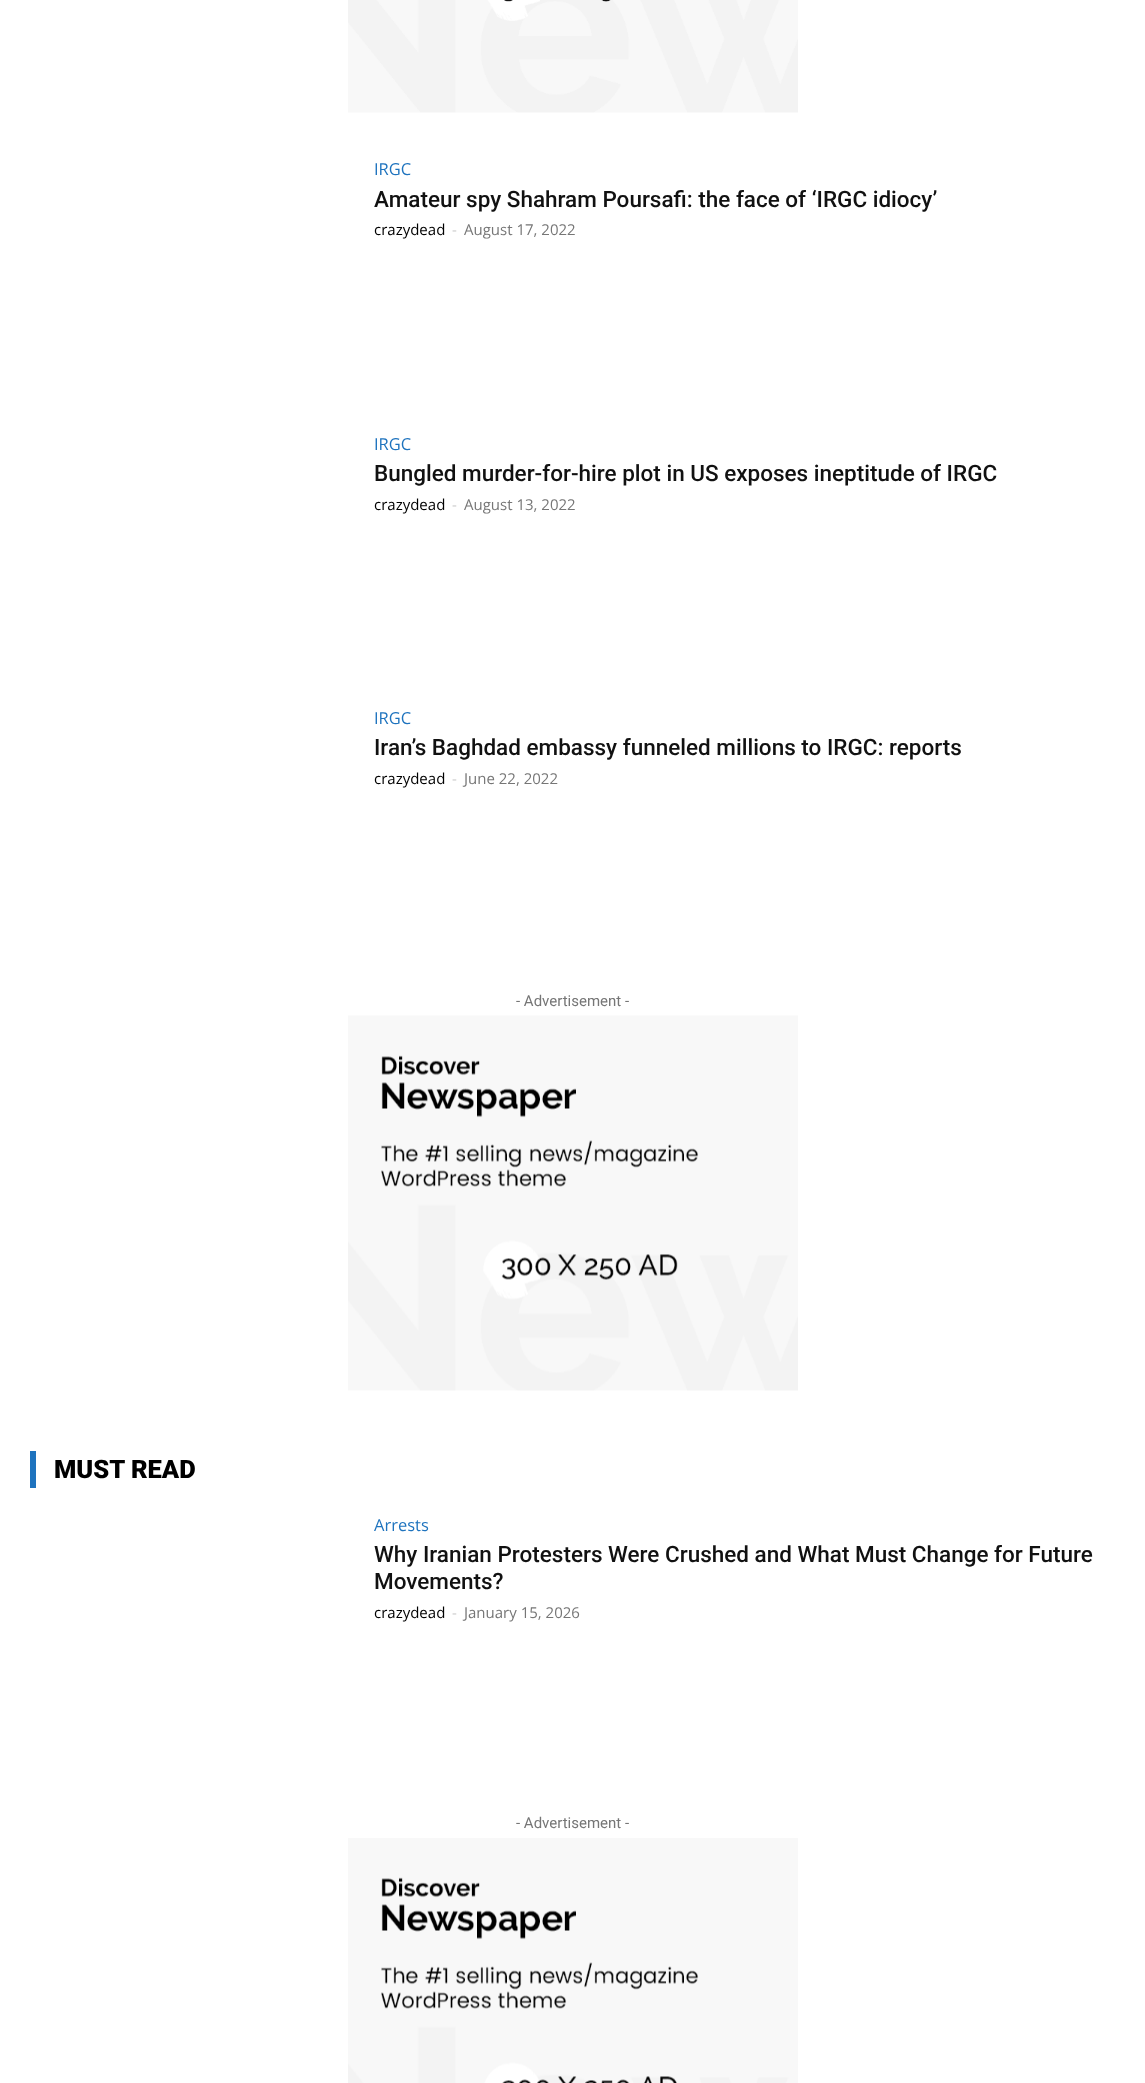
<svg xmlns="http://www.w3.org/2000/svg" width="1145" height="2083">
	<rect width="100%" height="100%" fill="#FFFFFF" />
	<image x="348" y="0" width="450" height="113" href="assets/img1.png" />
	<text x="374" y="175" font-family="Open Sans" font-size="16.5" fill="#1E73BE">IRGC</text>
	<text x="374" y="207" font-family="Roboto" font-size="22.5" font-weight="500" fill="#111111">Amateur spy Shahram Poursafi: the face of ‘IRGC idiocy’</text>
	<text x="374" y="235" font-family="Open Sans" font-size="15" fill="#000000">crazydead</text>
	<text x="452" y="235" font-family="Open Sans" font-size="15" fill="#CCCCCC">-</text>
	<text x="464" y="235" font-family="Open Sans" font-size="15" fill="#767676">August 17, 2022</text>
	<text x="374" y="450" font-family="Open Sans" font-size="16.5" fill="#1E73BE">IRGC</text>
	<text x="374" y="481" font-family="Roboto" font-size="22.5" font-weight="500" fill="#111111">Bungled murder-for-hire plot in US exposes ineptitude of IRGC</text>
	<text x="374" y="510" font-family="Open Sans" font-size="15" fill="#000000">crazydead</text>
	<text x="452" y="510" font-family="Open Sans" font-size="15" fill="#CCCCCC">-</text>
	<text x="464" y="510" font-family="Open Sans" font-size="15" fill="#767676">August 13, 2022</text>
	<text x="374" y="724" font-family="Open Sans" font-size="16.5" fill="#1E73BE">IRGC</text>
	<text x="374" y="755" font-family="Roboto" font-size="22.5" font-weight="500" fill="#111111">Iran’s Baghdad embassy funneled millions to IRGC: reports</text>
	<text x="374" y="784" font-family="Open Sans" font-size="15" fill="#000000">crazydead</text>
	<text x="452" y="784" font-family="Open Sans" font-size="15" fill="#CCCCCC">-</text>
	<text x="464" y="784" font-family="Open Sans" font-size="15" fill="#767676">June 22, 2022</text>
	<text x="516" y="1006" font-family="Roboto" font-size="15" fill="#767676">- Advertisement -</text>
	<image x="348" y="1015" width="450" height="376" href="assets/img2.png" />
	<rect x="30" y="1451" width="6" height="37" fill="#1E73BE" />
	<text x="54" y="1478" font-family="Roboto" font-size="25.5" font-weight="900" fill="#000000">MUST READ</text>
	<text x="374" y="1531" font-family="Open Sans" font-size="16.5" fill="#1E73BE">Arrests</text>
	<g font-family="Roboto" font-size="22.5" font-weight="500" fill="#111111">
		<text x="374" y="1562">Why Iranian Protesters Were Crushed and What Must Change for Future</text>
		<text x="374" y="1589">Movements?</text>
	</g>
	<text x="374" y="1618" font-family="Open Sans" font-size="15" fill="#000000">crazydead</text>
	<text x="452" y="1618" font-family="Open Sans" font-size="15" fill="#CCCCCC">-</text>
	<text x="464" y="1618" font-family="Open Sans" font-size="15" fill="#767676">January 15, 2026</text>
	<text x="516" y="1828" font-family="Roboto" font-size="15" fill="#767676">- Advertisement -</text>
	<image x="348" y="1838" width="450" height="245" href="assets/img3.png" />
</svg>
